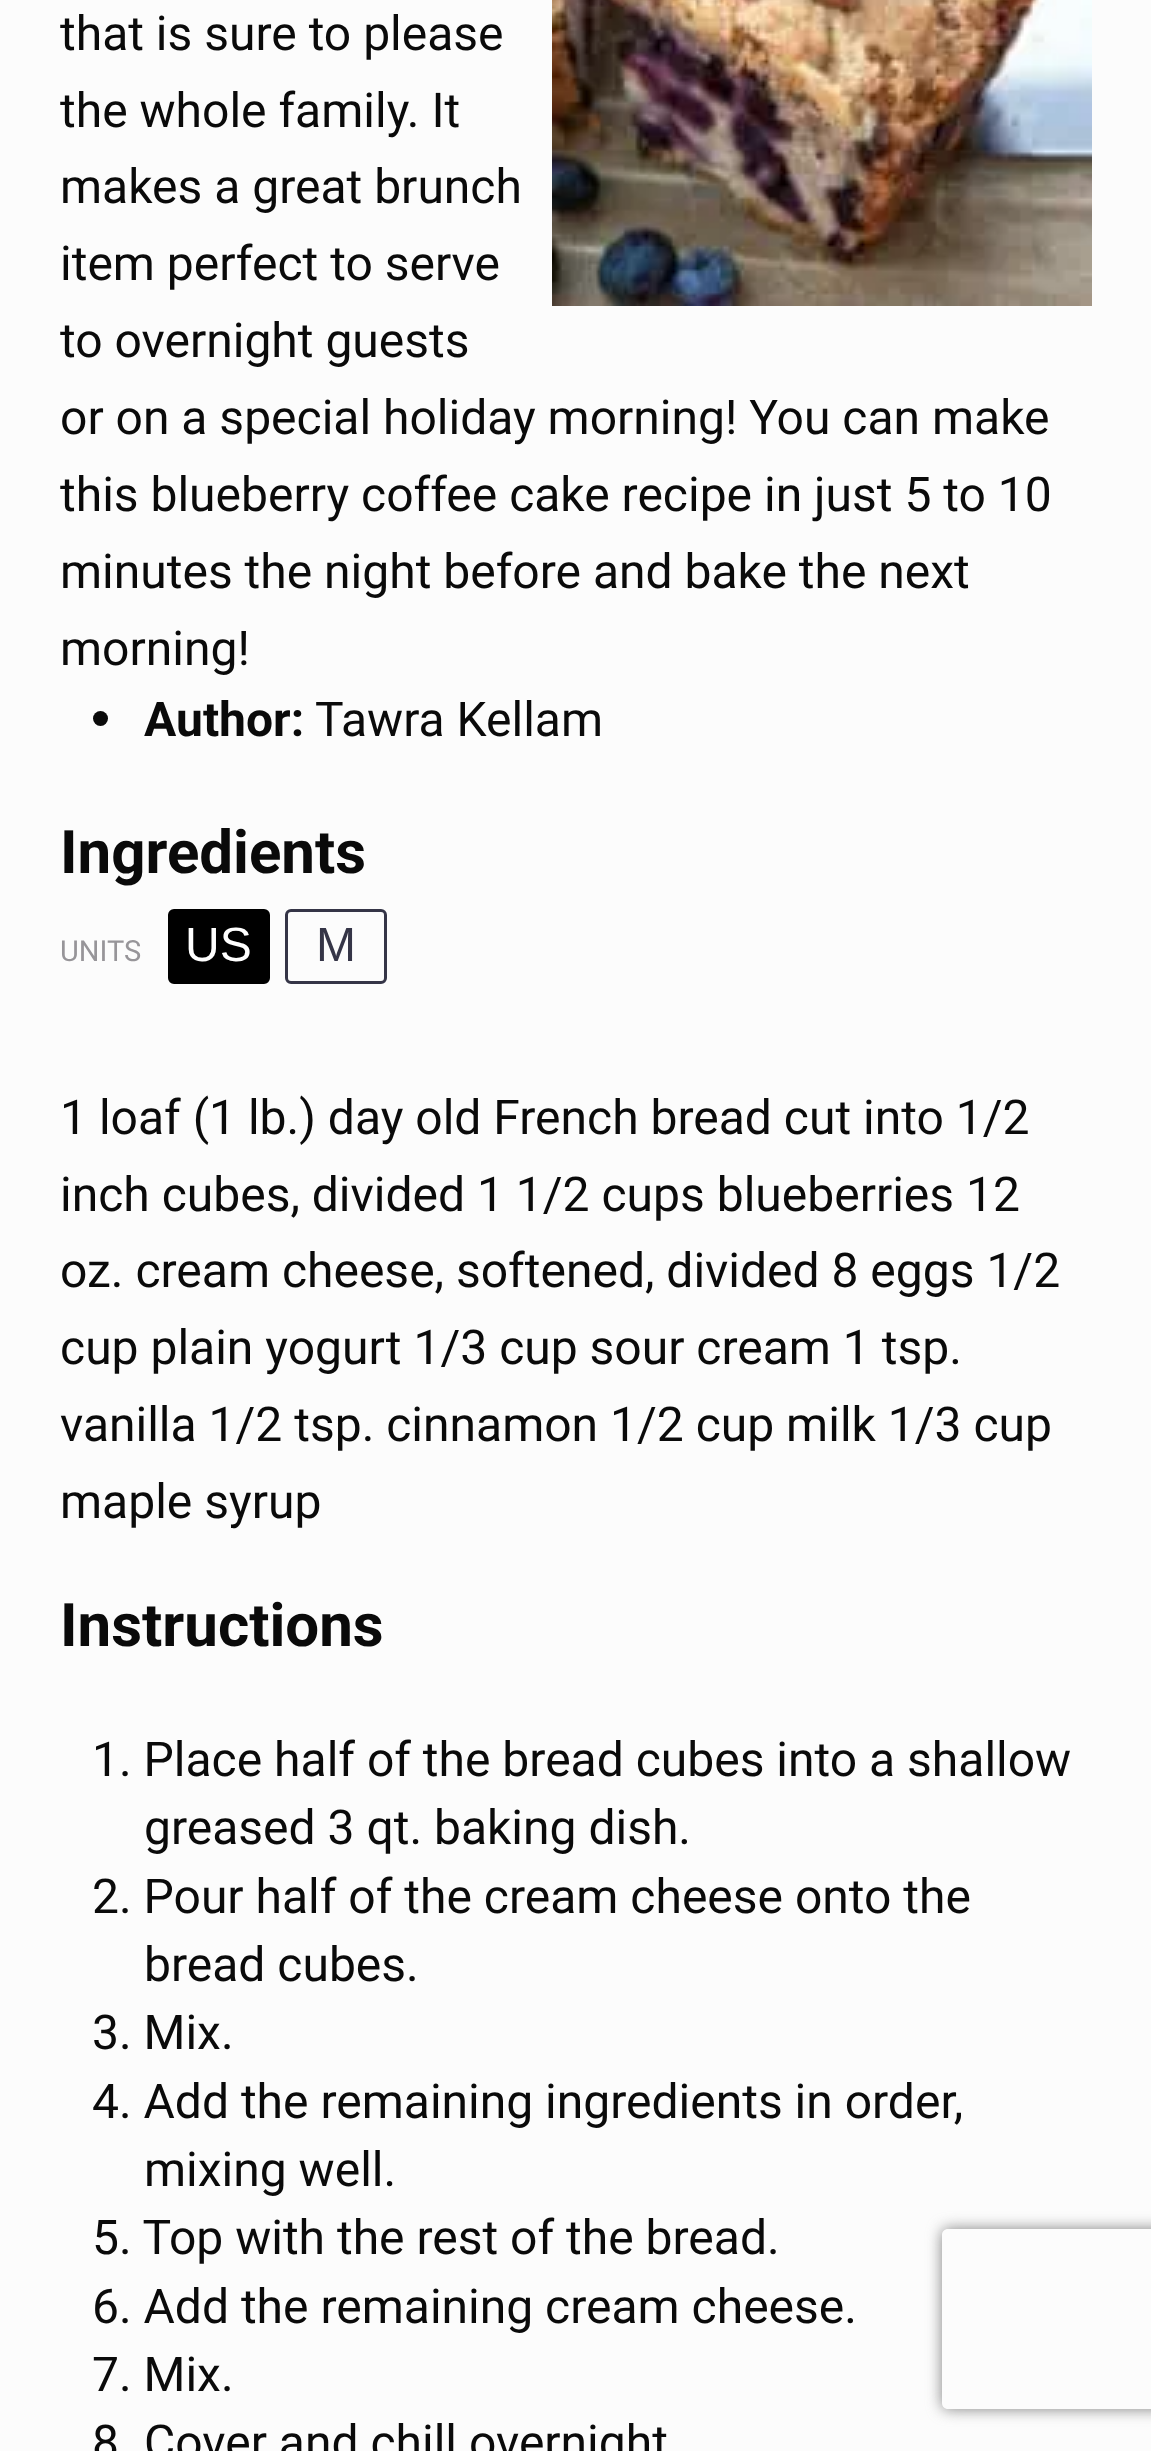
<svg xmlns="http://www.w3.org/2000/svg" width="1151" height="2451">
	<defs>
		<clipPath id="clip1"><path d="M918 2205H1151V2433H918ZM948 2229H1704C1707.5 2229 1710 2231.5 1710 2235V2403C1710 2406.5 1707.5 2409 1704 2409H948C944.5 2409 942 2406.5 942 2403V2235C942 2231.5 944.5 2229 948 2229Z" clip-rule="evenodd" /></clipPath>
	</defs>
	<rect width="100%" height="100%" fill="#FCFCFC" />
	<image x="552" y="0" width="540" height="306" href="assets/img1.png" />
	<g font-family="Roboto" font-size="48" fill="#0A0A0A">
		<text x="60" y="50">that is sure to please</text>
		<text x="60" y="127">the whole family. It</text>
		<text x="60" y="203">makes a great brunch</text>
		<text x="60" y="280">item perfect to serve</text>
		<text x="60" y="357">to overnight guests</text>
		<text x="60" y="434">or on a special holiday morning! You can make</text>
		<text x="60" y="511">this blueberry coffee cake recipe in just 5 to 10</text>
		<text x="60" y="588">minutes the night before and bake the next</text>
		<text x="60" y="665">morning!</text>
	</g>
	<circle cx="100.5" cy="718.5" r="7.5" fill="#0A0A0A" />
	<text x="144" y="736" font-family="Roboto" font-size="48" font-weight="700" fill="#0A0A0A">Author:</text>
	<text x="315" y="736" font-family="Roboto" font-size="48" fill="#0A0A0A">Tawra Kellam</text>
	<text x="60" y="873" font-family="Roboto" font-size="60" font-weight="700" fill="#0A0A0A">Ingredients</text>
	<text x="60" y="961" font-family="Roboto" font-size="29" fill="#979599">UNITS</text>
	<rect x="169.5" y="910.5" width="99" height="72" rx="4.5" fill="#000000" stroke="#000000" stroke-width="3" />
	<text x="185" y="961" font-family="Liberation Sans" font-size="48" fill="#FFFFFF">US</text>
	<rect x="286.5" y="910.5" width="99" height="72" rx="4.5" fill="none" stroke="#353547" stroke-width="3" />
	<text x="316" y="961" font-family="Liberation Sans" font-size="48" fill="#353547">M</text>
	<g font-family="Roboto" font-size="48" fill="#0A0A0A">
		<text x="60" y="1134">1 loaf (1 lb.) day old French bread cut into 1/2</text>
		<text x="60" y="1211">inch cubes, divided 1 1/2 cups blueberries 12</text>
		<text x="60" y="1287">oz. cream cheese, softened, divided 8 eggs 1/2</text>
		<text x="60" y="1364">cup plain yogurt 1/3 cup sour cream 1 tsp.</text>
		<text x="60" y="1441">vanilla 1/2 tsp. cinnamon 1/2 cup milk 1/3 cup</text>
		<text x="60" y="1518">maple syrup</text>
	</g>
	<text x="60" y="1646" font-family="Roboto" font-size="60" font-weight="700" fill="#0A0A0A">Instructions</text>
	<g font-family="Roboto" font-size="48" fill="#0A0A0A">
		<text x="92" y="1776">1. Place half of the bread cubes into a shallow</text>
		<text x="144" y="1844">greased 3 qt. baking dish.</text>
		<text x="92" y="1913">2. Pour half of the cream cheese onto the</text>
		<text x="144" y="1981">bread cubes.</text>
		<text x="92" y="2049">3. Mix.</text>
		<text x="92" y="2118">4. Add the remaining ingredients in order,</text>
		<text x="144" y="2186">mixing well.</text>
		<text x="92" y="2254">5. Top with the rest of the bread.</text>
		<text x="92" y="2323">6. Add the remaining cream cheese.</text>
		<text x="92" y="2391">7. Mix.</text>
		<text x="92" y="2459">8</text>
		<text x="144" y="2459">Cover and chill overnight</text>
	</g>
	<g clip-path="url(#clip1)">
		<rect x="942" y="2229" width="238" height="180" rx="6" fill="#808080" filter="blur(7.5px)" />
	</g>
</svg>
